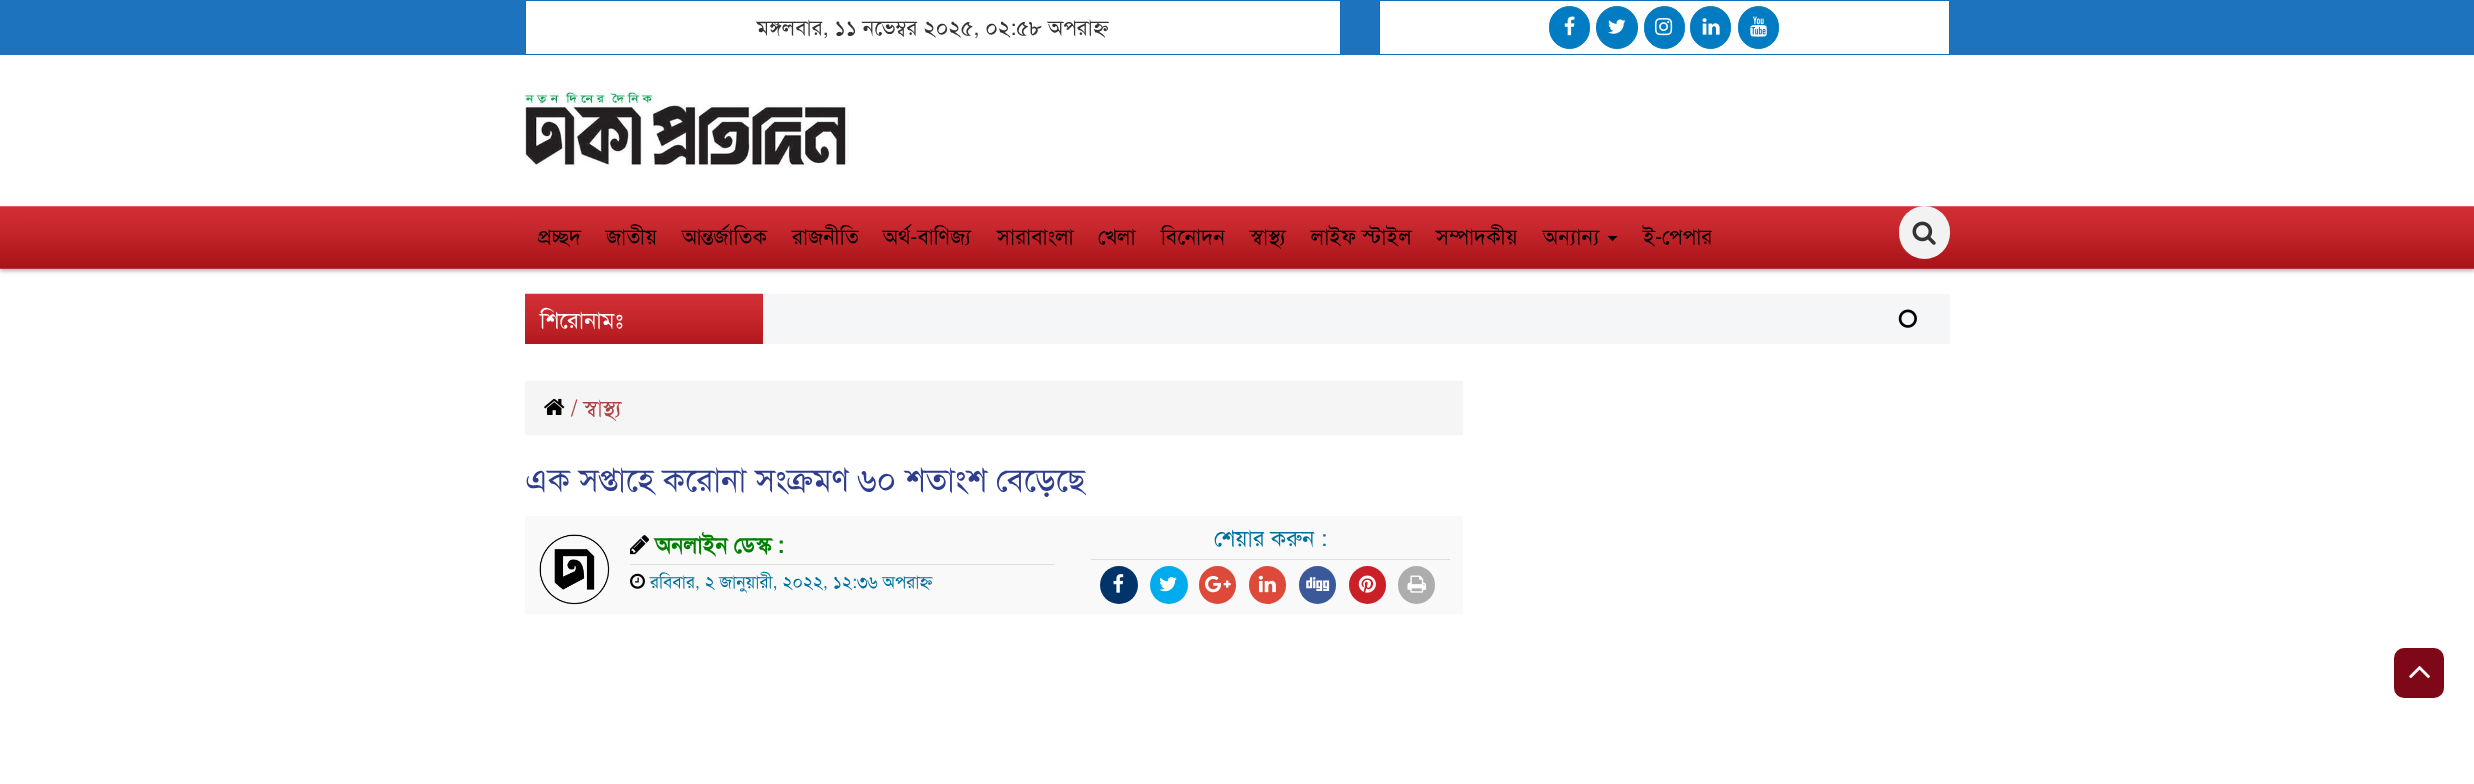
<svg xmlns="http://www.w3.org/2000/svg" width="2474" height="784">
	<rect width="100%" height="100%" fill="#FFFFFF" />
	<rect x="0" y="0" width="2474" height="55" fill="#1E73BE" />
	<rect x="525.5" y="0.5" width="815" height="54" fill="#FFFFFF" stroke="#0E6FBA" />
	<text x="757" y="35" font-family="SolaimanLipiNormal" font-size="21.25" fill="#333333">মঙ্গলবার, ১১ নভেম্বর ২০২৫, ০২:৫৮ অপরাহ্ন</text>
	<rect x="1379.5" y="0.5" width="570" height="54" fill="#FFFFFF" stroke="#0E6FBA" />
	<rect x="1549.5" y="6.5" width="40" height="42" rx="20" fill="#017CC2" stroke="#017CC2" />
	<image x="1564" y="16" width="11" height="20" href="assets/img1.png" />
	<rect x="1596.5" y="6.5" width="41" height="42" rx="20.5" fill="#017CC2" stroke="#017CC2" />
	<image x="1608" y="19" width="18" height="15" href="assets/img2.png" />
	<rect x="1644.5" y="6.5" width="40" height="42" rx="20" fill="#017CC2" stroke="#017CC2" />
	<image x="1655" y="18" width="18" height="18" href="assets/img3.png" />
	<rect x="1690.5" y="6.5" width="40" height="42" rx="20" fill="#017CC2" stroke="#017CC2" />
	<image x="1702" y="18" width="18" height="17" href="assets/img4.png" />
	<rect x="1738.5" y="6.5" width="40" height="42" rx="20" fill="#017CC2" stroke="#017CC2" />
	<image x="1750" y="16" width="17" height="21" href="assets/img5.png" />
	<image x="525" y="92" width="324" height="75" href="assets/img6.png" />
	<rect x="0" y="209" width="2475" height="62" fill="#000000" fill-opacity="0.3" filter="blur(2px)" />
	<image x="0" y="206" width="2474" height="63" href="assets/img7.png" />
	<g font-family="SolaimanLipiNormal" font-size="21.25" fill="#000000">
		<text x="538" y="244">প্রচ্ছদ</text>
		<text x="606" y="244">জাতীয়</text>
		<text x="682" y="244">আন্তর্জাতিক</text>
		<text x="792" y="244">রাজনীতি</text>
		<text x="883" y="244">অর্থ-বাণিজ্য</text>
		<text x="997" y="244">সারাবাংলা</text>
		<text x="1098" y="244">খেলা</text>
		<text x="1161" y="244">বিনোদন</text>
		<text x="1250" y="244">স্বাস্থ্য</text>
		<text x="1311" y="244">লাইফ স্টাইল</text>
		<text x="1436" y="244">সম্পাদকীয়</text>
		<text x="1543" y="244">অন্যান্য</text>
	</g>
	<path d="M1607.5 236H1617.5L1612.5 241Z" fill="#000000" />
	<text x="1643" y="244" font-family="SolaimanLipiNormal" font-size="21.25" fill="#000000">ই-পেপার</text>
	<rect x="1899" y="206" width="51" height="53" rx="25.5" fill="#F2F2F2" />
	<image x="1912" y="221" width="24" height="24" href="assets/img8.png" />
	<rect x="525" y="294" width="238" height="50" fill="#BA2024" />
	<image x="525" y="293" width="238" height="51" href="assets/img9.png" />
	<text x="540" y="328" font-family="SolaimanLipiNormal" font-size="22.5" fill="#FFFFFF">শিরোনামঃ</text>
	<rect x="763" y="294" width="1187" height="50" fill="#F5F6F7" />
	<image x="1898" y="309" width="19" height="19" href="assets/img10.png" />
	<rect x="525" y="381" width="938" height="54" fill="#F5F5F5" />
	<image x="544" y="398" width="21" height="17" href="assets/img11.png" />
	<text x="571" y="416" font-family="SolaimanLipiNormal" font-size="22.5" fill="#A94442">/ স্বাস্থ্য</text>
	<text x="525" y="491" font-family="SolaimanLipiNormal" font-size="32.5" fill="#2E3D8E">এক সপ্তাহে করোনা সংক্রমণ ৬০ শতাংশ বেড়েছে</text>
	<rect x="525" y="516" width="938" height="98" fill="#F9F9F9" />
	<image x="539" y="534" width="71" height="71" href="assets/img12.png" />
	<rect x="630" y="564" width="424" height="1" fill="#DDDDDD" />
	<image x="630" y="535" width="19" height="20" href="assets/img13.png" />
	<text x="655" y="553" font-family="SolaimanLipiNormal" font-size="22.5" font-weight="700" fill="#008000">অনলাইন ডেস্ক :</text>
	<image x="630" y="573" width="15" height="16" href="assets/img14.png" />
	<text x="650" y="588" font-family="SolaimanLipiNormal" font-size="17.5" fill="#00709B">রবিবার, ২ জানুয়ারী, ২০২২, ১২:৩৬ অপরাহ্ন</text>
	<rect x="1091" y="559" width="359" height="1" fill="#DDDDDD" />
	<text x="1214" y="546" font-family="SolaimanLipiNormal" font-size="22.5" fill="#00709B">শেয়ার করুন :</text>
	<circle cx="1119" cy="585" r="19" fill="#023369" />
	<image x="1113" y="574" width="11" height="19" href="assets/img15.png" />
	<circle cx="1169" cy="585" r="19" fill="#00ACEE" />
	<image x="1159" y="577" width="18" height="15" href="assets/img16.png" />
	<rect x="1199" y="566" width="37" height="38" rx="18.5" fill="#DD4A3A" />
	<image x="1205" y="575" width="26" height="18" href="assets/img17.png" />
	<rect x="1249" y="566" width="37" height="38" rx="18.5" fill="#DD4A3A" />
	<image x="1258" y="575" width="18" height="18" href="assets/img18.png" />
	<rect x="1299" y="566" width="37" height="38" rx="18.5" fill="#3B5999" />
	<image x="1306" y="577" width="24" height="14" href="assets/img19.png" />
	<rect x="1349" y="566" width="37" height="38" rx="18.5" fill="#CB2028" />
	<image x="1358" y="575" width="18" height="18" href="assets/img20.png" />
	<rect x="1398" y="566" width="37" height="38" rx="18.5" fill="#ADADAD" />
	<image x="1407" y="575" width="20" height="18" href="assets/img21.png" />
	<rect x="2394" y="648" width="50" height="50" rx="10" fill="#7F0818" />
	<image x="2409" y="666" width="21" height="13" href="assets/img22.png" />
</svg>
